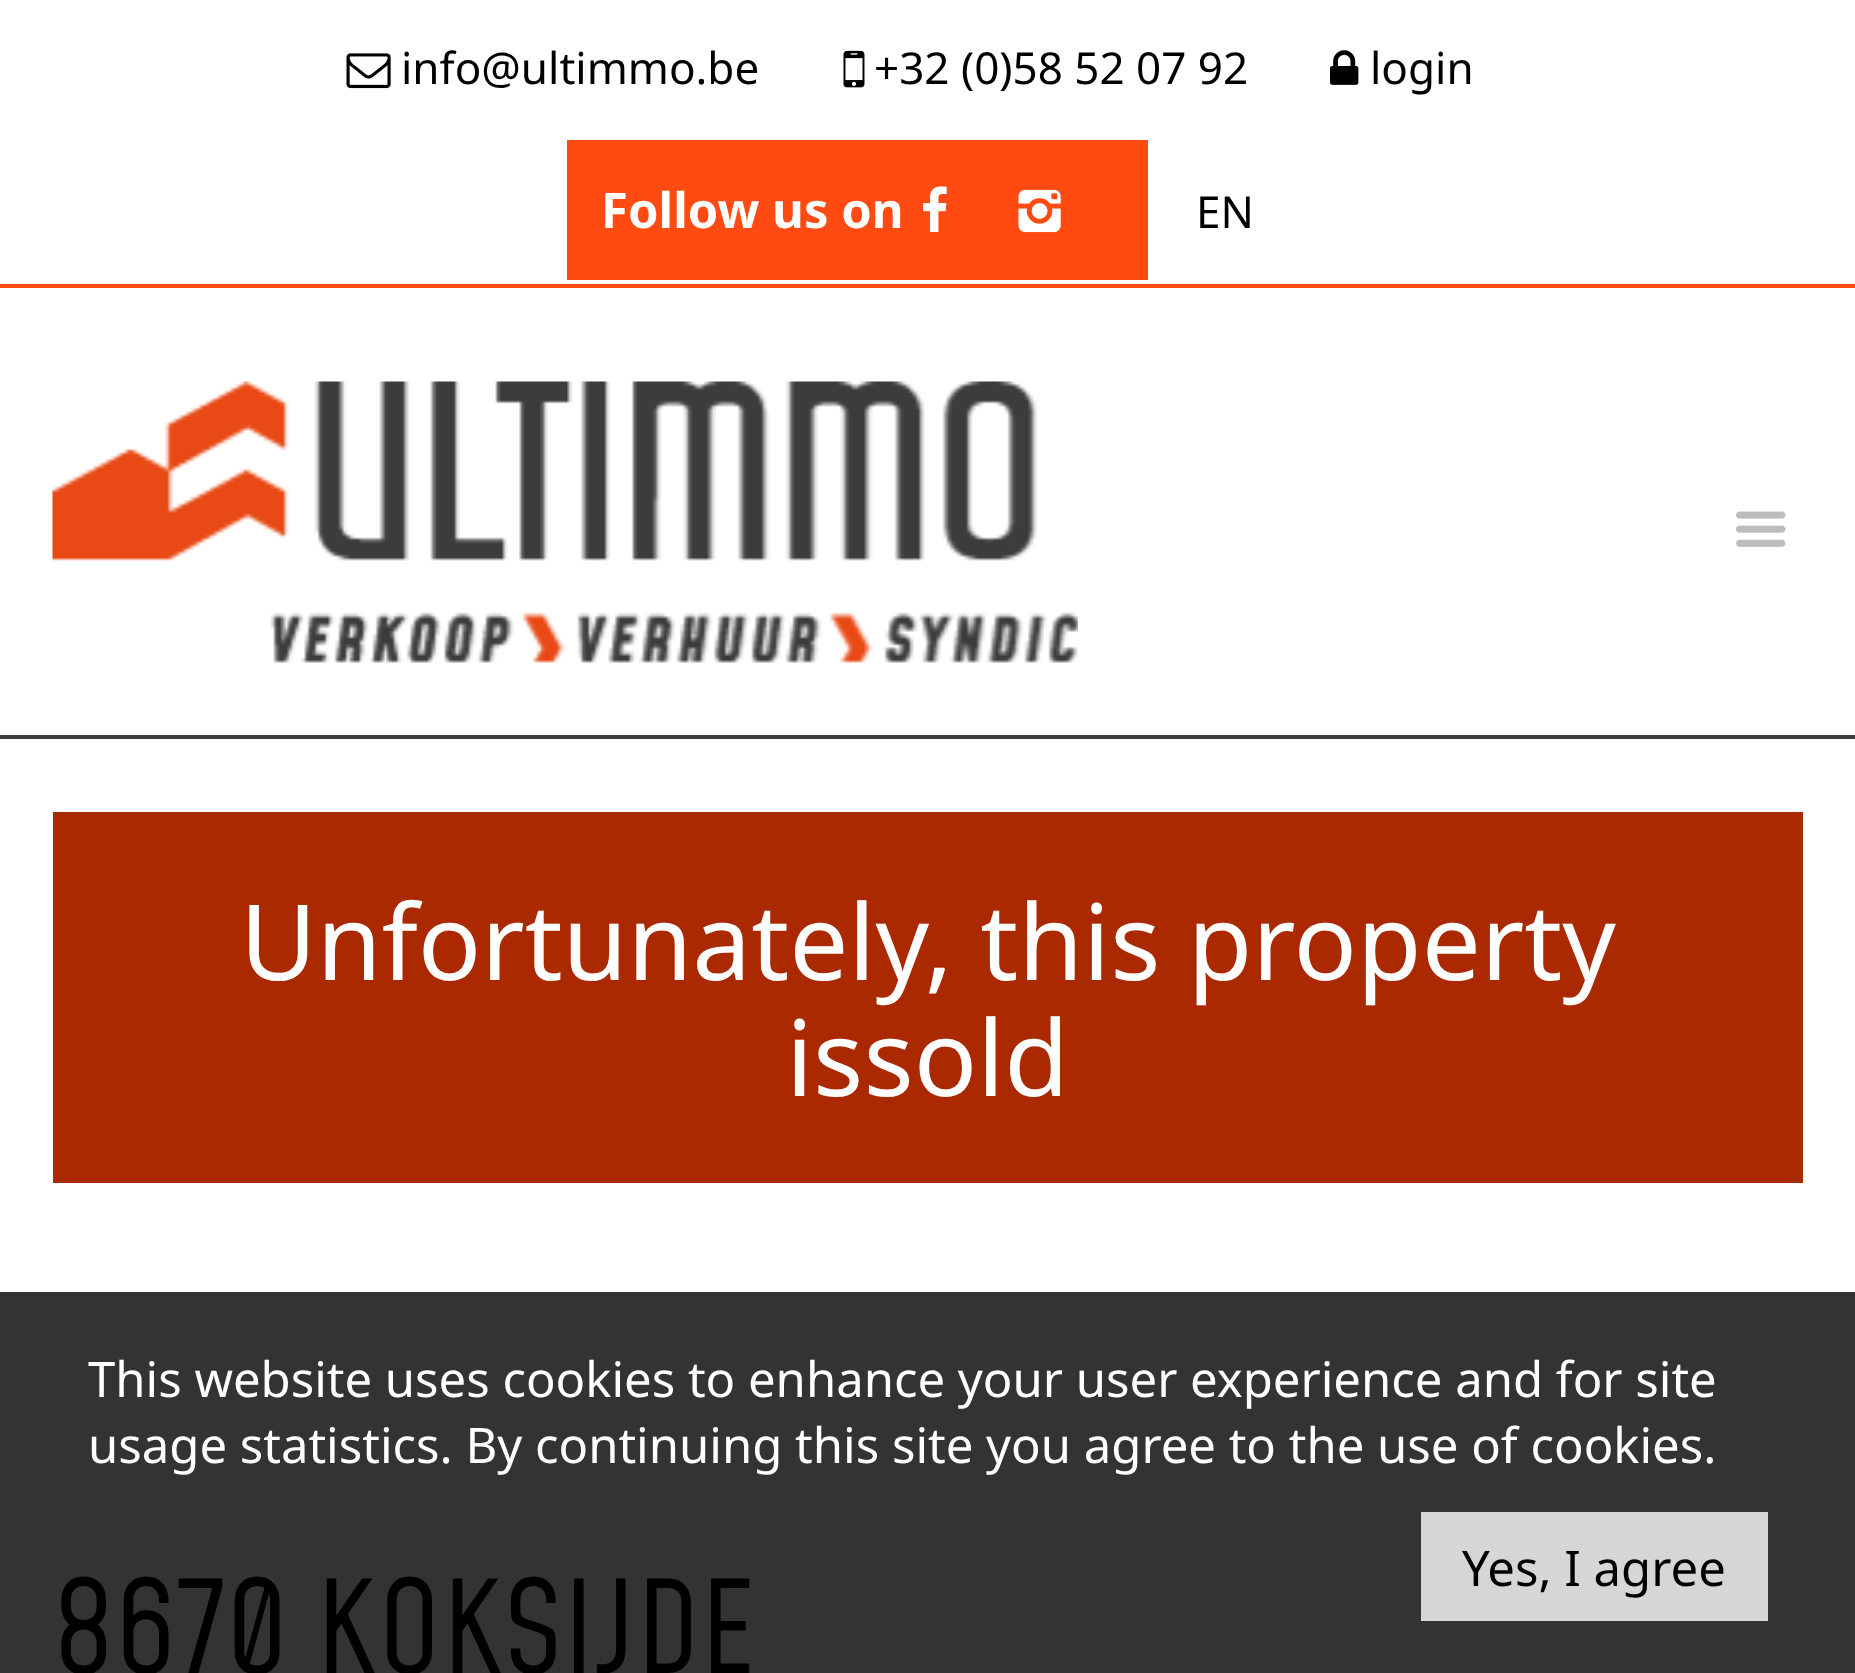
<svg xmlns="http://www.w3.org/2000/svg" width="1855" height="1673">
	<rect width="100%" height="100%" fill="#FFFFFF" />
	<rect x="0" y="1292" width="1855" height="381" fill="#333333" />
	<image x="346" y="53" width="45" height="36" href="assets/img1.png" />
	<text x="401" y="84" font-family="Noto Sans" font-size="44" fill="#000000">info@ultimmo.be</text>
	<image x="843" y="50" width="22" height="38" href="assets/img2.png" />
	<text x="874" y="84" font-family="Noto Sans" font-size="44" fill="#000000">+32 (0)58 52 07 92</text>
	<image x="1330" y="50" width="29" height="35" href="assets/img3.png" />
	<text x="1370" y="84" font-family="Noto Sans" font-size="44" fill="#000000">login</text>
	<rect x="567" y="140" width="581" height="140" fill="#FF4B11" />
	<text x="601" y="228" font-family="Noto Sans" font-size="49" font-weight="700" fill="#FFFFFF">Follow us on</text>
	<image x="923" y="186" width="24" height="46" href="assets/img4.png" />
	<image x="1018" y="189" width="43" height="44" href="assets/img5.png" />
	<text x="1196" y="228" font-family="Noto Sans" font-size="44" fill="#000000">EN</text>
	<rect x="0" y="284" width="1855" height="4" fill="#FF4B11" />
	<rect x="0" y="735" width="1855" height="4" fill="#3C3C3B" />
	<image x="52" y="381" width="1026" height="282" href="assets/img6.png" />
	<image x="1736" y="511" width="50" height="36" href="assets/img7.png" />
	<rect x="53" y="812" width="1750" height="371" fill="#AA2900" />
	<g font-family="Noto Sans" font-size="105" fill="#FFFFFF">
		<text x="240" y="980">Unfortunately, this property</text>
		<text x="786" y="1096">issold</text>
	</g>
	<text x="53" y="1673" font-family="Mohave" font-size="126" fill="#000000">8670 KOKSIJDE</text>
	<g font-family="Noto Sans" font-size="49" fill="#FFFFFF">
		<text x="88" y="1397">This website uses cookies to enhance your user experience and for site</text>
		<text x="88" y="1463">usage statistics. By continuing this site you agree to the use of cookies.</text>
	</g>
	<rect x="1421" y="1512" width="347" height="109" fill="#D6D6D6" />
	<text x="1462" y="1586" font-family="Noto Sans" font-size="49" fill="#000000">Yes, I agree</text>
</svg>
